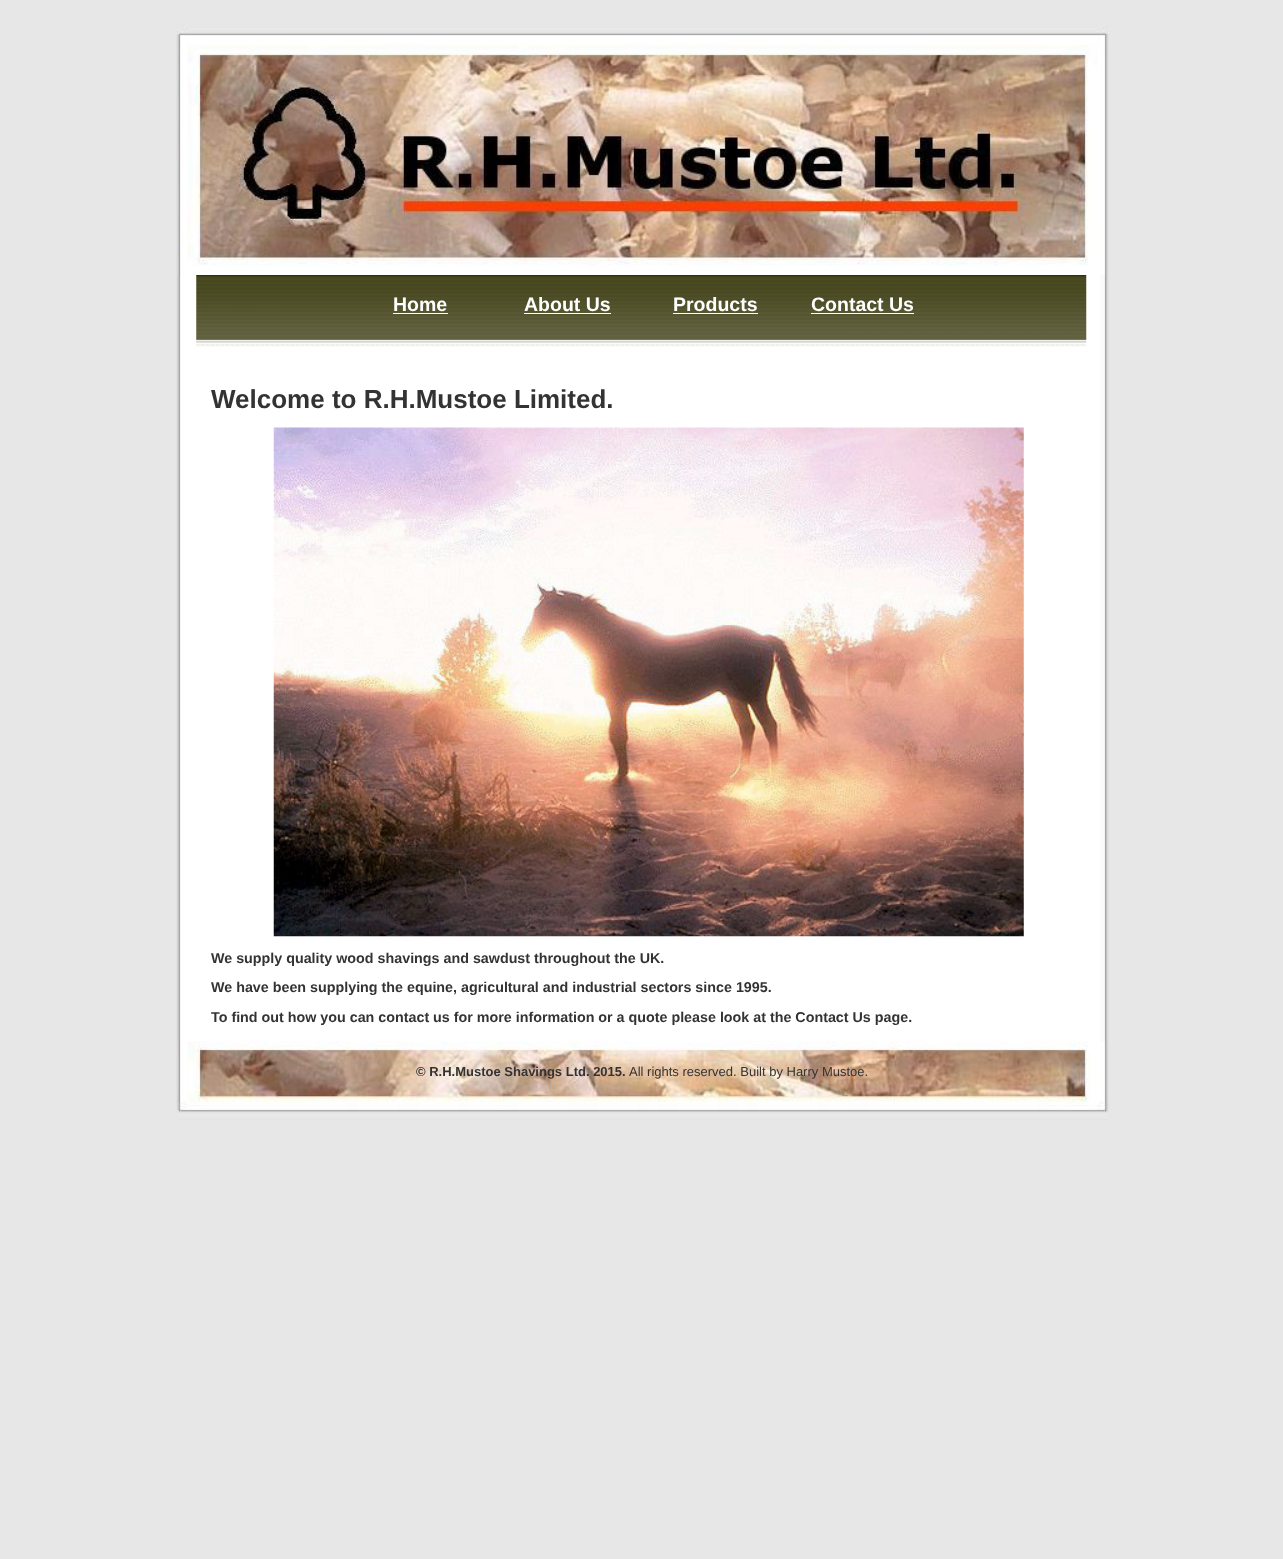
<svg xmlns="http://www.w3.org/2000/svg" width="1283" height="1559">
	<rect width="100%" height="100%" fill="#E7E7E7" />
	<image x="176" y="275" width="933" height="767" href="assets/img1.png" />
	<image x="176" y="25" width="933" height="250" href="assets/img2.png" />
	<image x="196" y="275" width="891" height="72" href="assets/img3.png" />
	<text x="393" y="311" font-family="Liberation Sans" font-size="19.5" font-weight="700" fill="#FFFFFF">Home</text>
	<rect x="393" y="313" width="55" height="1" fill="#FFFFFF" />
	<text x="524" y="311" font-family="Liberation Sans" font-size="19.5" font-weight="700" fill="#FFFFFF">About Us</text>
	<rect x="524" y="313" width="87" height="1" fill="#FFFFFF" />
	<text x="673" y="311" font-family="Liberation Sans" font-size="19.5" font-weight="700" fill="#FFFFFF">Products</text>
	<rect x="673" y="313" width="85" height="1" fill="#FFFFFF" />
	<text x="811" y="311" font-family="Liberation Sans" font-size="19.5" font-weight="700" fill="#FFFFFF">Contact Us</text>
	<rect x="811" y="313" width="103" height="1" fill="#FFFFFF" />
	<text x="211" y="408" font-family="Liberation Sans" font-size="26" font-weight="700" fill="#333333">Welcome to R.H.Mustoe Limited.</text>
	<image x="273" y="427" width="751" height="510" href="assets/img4.png" />
	<g font-family="Liberation Sans" font-size="14.3" font-weight="700" fill="#333333">
		<text x="211" y="963">We supply quality wood shavings and sawdust throughout the UK.</text>
		<text x="211" y="992">We have been supplying the equine, agricultural and industrial sectors since 1995.</text>
		<text x="211" y="1022">To find out how you can contact us for more information or a quote please look at the Contact Us page.</text>
	</g>
	<image x="176" y="1041" width="933" height="79" href="assets/img5.png" />
	<text x="416" y="1076" font-family="Liberation Sans" font-size="13" font-weight="700" fill="#333333">© R.H.Mustoe Shavings Ltd. 2015.</text>
	<text x="629" y="1076" font-family="Liberation Sans" font-size="13" fill="#333333">All rights reserved. Built by Harry Mustoe.</text>
</svg>
